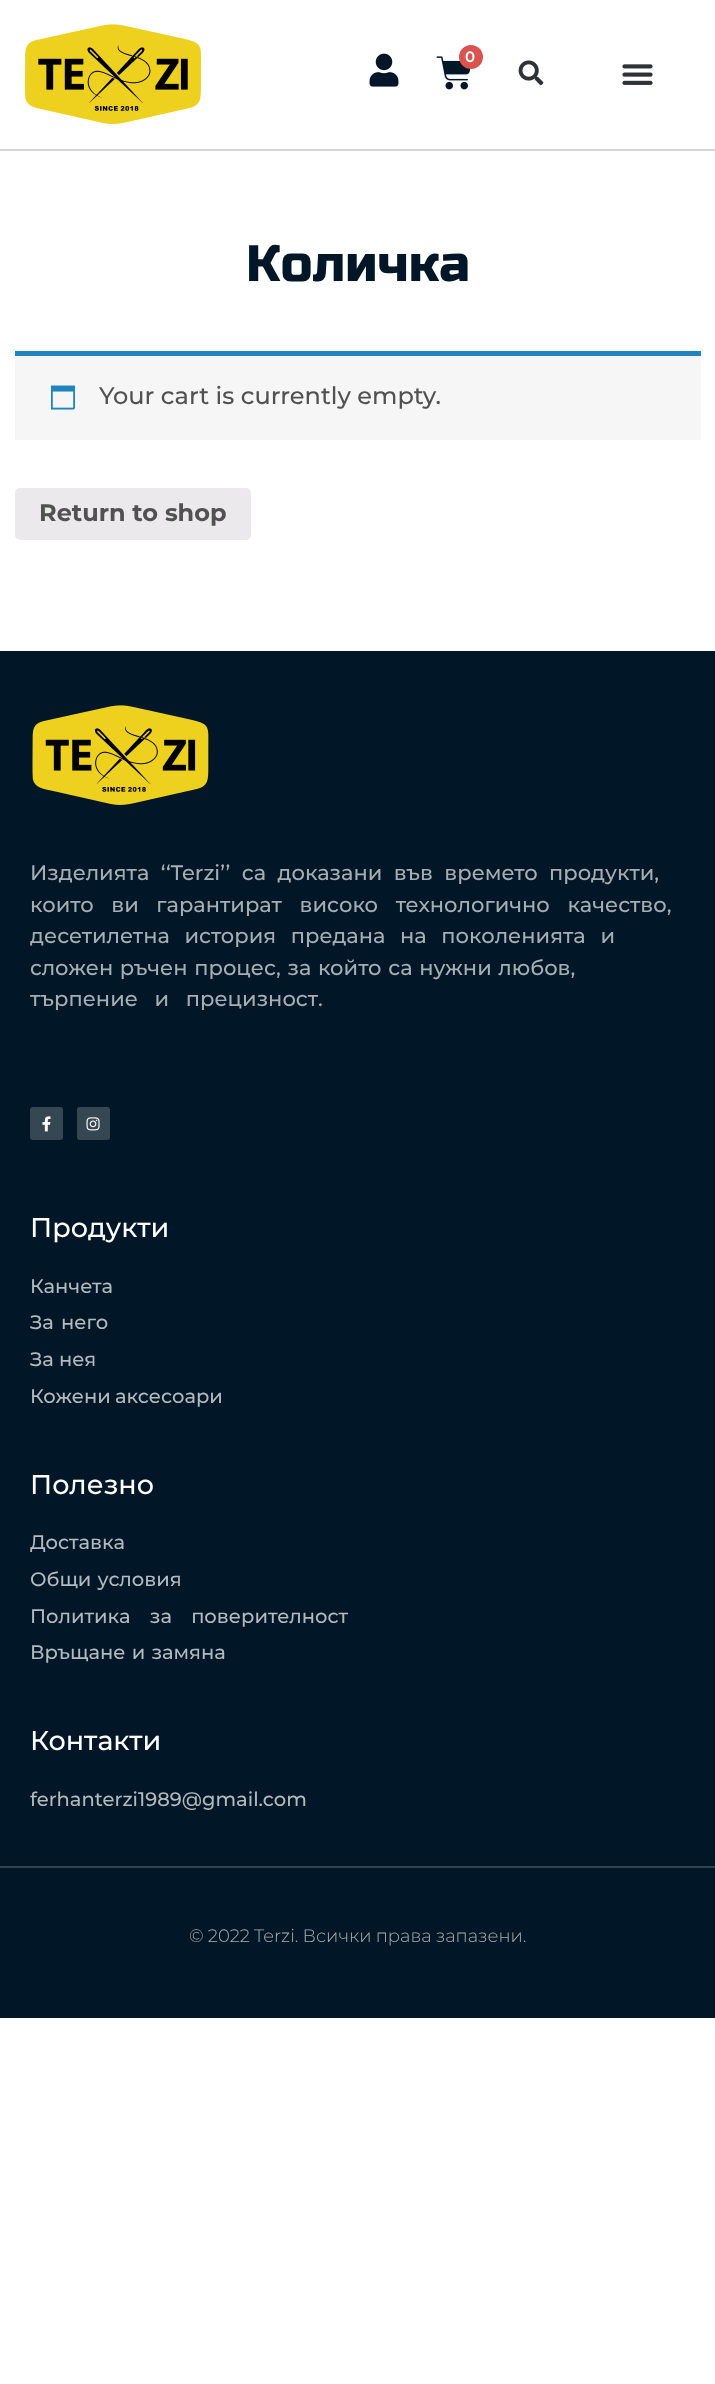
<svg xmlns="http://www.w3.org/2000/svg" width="715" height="2384">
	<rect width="100%" height="100%" fill="#FFFFFF" />
	<rect x="0" y="149" width="715" height="2" fill="#D6D6D6" />
	<image x="25" y="24" width="176" height="100" href="assets/img1.png" />
	<image x="369" y="53" width="30" height="34" href="assets/img2.png" />
	<image x="436" y="56" width="35" height="34" href="assets/img3.png" />
	<circle cx="471" cy="57" r="12" fill="#D9534F" />
	<text x="465" y="62" font-family="Montserrat" font-size="15" font-weight="600" fill="#FFFFFF">0</text>
	<image x="518" y="60" width="26" height="26" href="assets/img4.png" />
	<image x="622" y="64" width="31" height="21" href="assets/img5.png" />
	<text x="246" y="281" font-family="Russo One" font-size="51" fill="#011627">Количка</text>
	<rect x="15" y="356" width="686" height="84" fill="#F7F6F7" />
	<rect x="15" y="351" width="686" height="5" fill="#1E85BE" />
	<image x="51" y="385" width="24" height="25" href="assets/img6.png" />
	<text x="99" y="404" font-family="Montserrat" font-size="24" font-weight="500" fill="#515151">Your cart is currently empty.</text>
	<rect x="15" y="488" width="236" height="52" rx="5" fill="#EBE9EB" />
	<text x="39" y="521" font-family="Montserrat" font-size="24" font-weight="700" fill="#515151">Return to shop</text>
	<rect x="0" y="651" width="715" height="1215" fill="#011627" />
	<image x="32" y="705" width="177" height="100" href="assets/img7.png" />
	<g font-family="Montserrat" font-size="21" font-weight="500" fill="#A6ADB3">
		<text x="30" y="880" word-spacing="5.75">Изделията ‘‘Terzi’’ са доказани във времето продукти,</text>
		<text x="30" y="912" word-spacing="12">които ви гарантират високо технологично качество,</text>
		<text x="30" y="943" word-spacing="9">десетилетна история предана на поколенията и</text>
		<text x="30" y="975" word-spacing="1">сложен ръчен процес, за който са нужни любов,</text>
		<text x="30" y="1006" word-spacing="11">търпение и прецизност.</text>
	</g>
	<rect x="30" y="1107" width="33" height="33" rx="3" fill="#364754" />
	<image x="42" y="1116" width="9" height="16" href="assets/img8.png" />
	<rect x="77" y="1107" width="33" height="33" rx="3" fill="#364754" />
	<image x="86" y="1117" width="14" height="14" href="assets/img9.png" />
	<text x="30" y="1237" font-family="Montserrat" font-size="27" font-weight="500" fill="#FFFFFF">Продукти</text>
	<g font-family="Montserrat" font-size="19.5" font-weight="500" fill="#B3B9BE">
		<text x="30" y="1293">Канчета</text>
		<text x="30" y="1329" word-spacing="2">За него</text>
		<text x="30" y="1366">За нея</text>
		<text x="30" y="1403" word-spacing="-1">Кожени аксесоари</text>
	</g>
	<text x="30" y="1494" font-family="Montserrat" font-size="27" font-weight="500" fill="#FFFFFF">Полезно</text>
	<g font-family="Montserrat" font-size="19.5" font-weight="500" fill="#B3B9BE">
		<text x="30" y="1549">Доставка</text>
		<text x="30" y="1586" word-spacing="1">Общи условия</text>
		<text x="30" y="1623" word-spacing="14">Политика за поверителност</text>
		<text x="30" y="1659" word-spacing="1">Връщане и замяна</text>
	</g>
	<text x="30" y="1750" font-family="Montserrat" font-size="27" font-weight="500" fill="#FFFFFF">Контакти</text>
	<text x="30" y="1806" font-family="Montserrat" font-size="19.5" font-weight="500" fill="#B3B9BE">ferhanterzi1989@gmail.com</text>
	<rect x="0" y="1868" width="715" height="150" fill="#011627" />
	<rect x="0" y="1866" width="715" height="2" fill="#314250" />
	<text x="189" y="1942" word-spacing="-0.5" font-family="Montserrat" font-size="18" font-weight="300" fill="#ADADAD">© 2022 Terzi. Всички права запазени.</text>
</svg>
